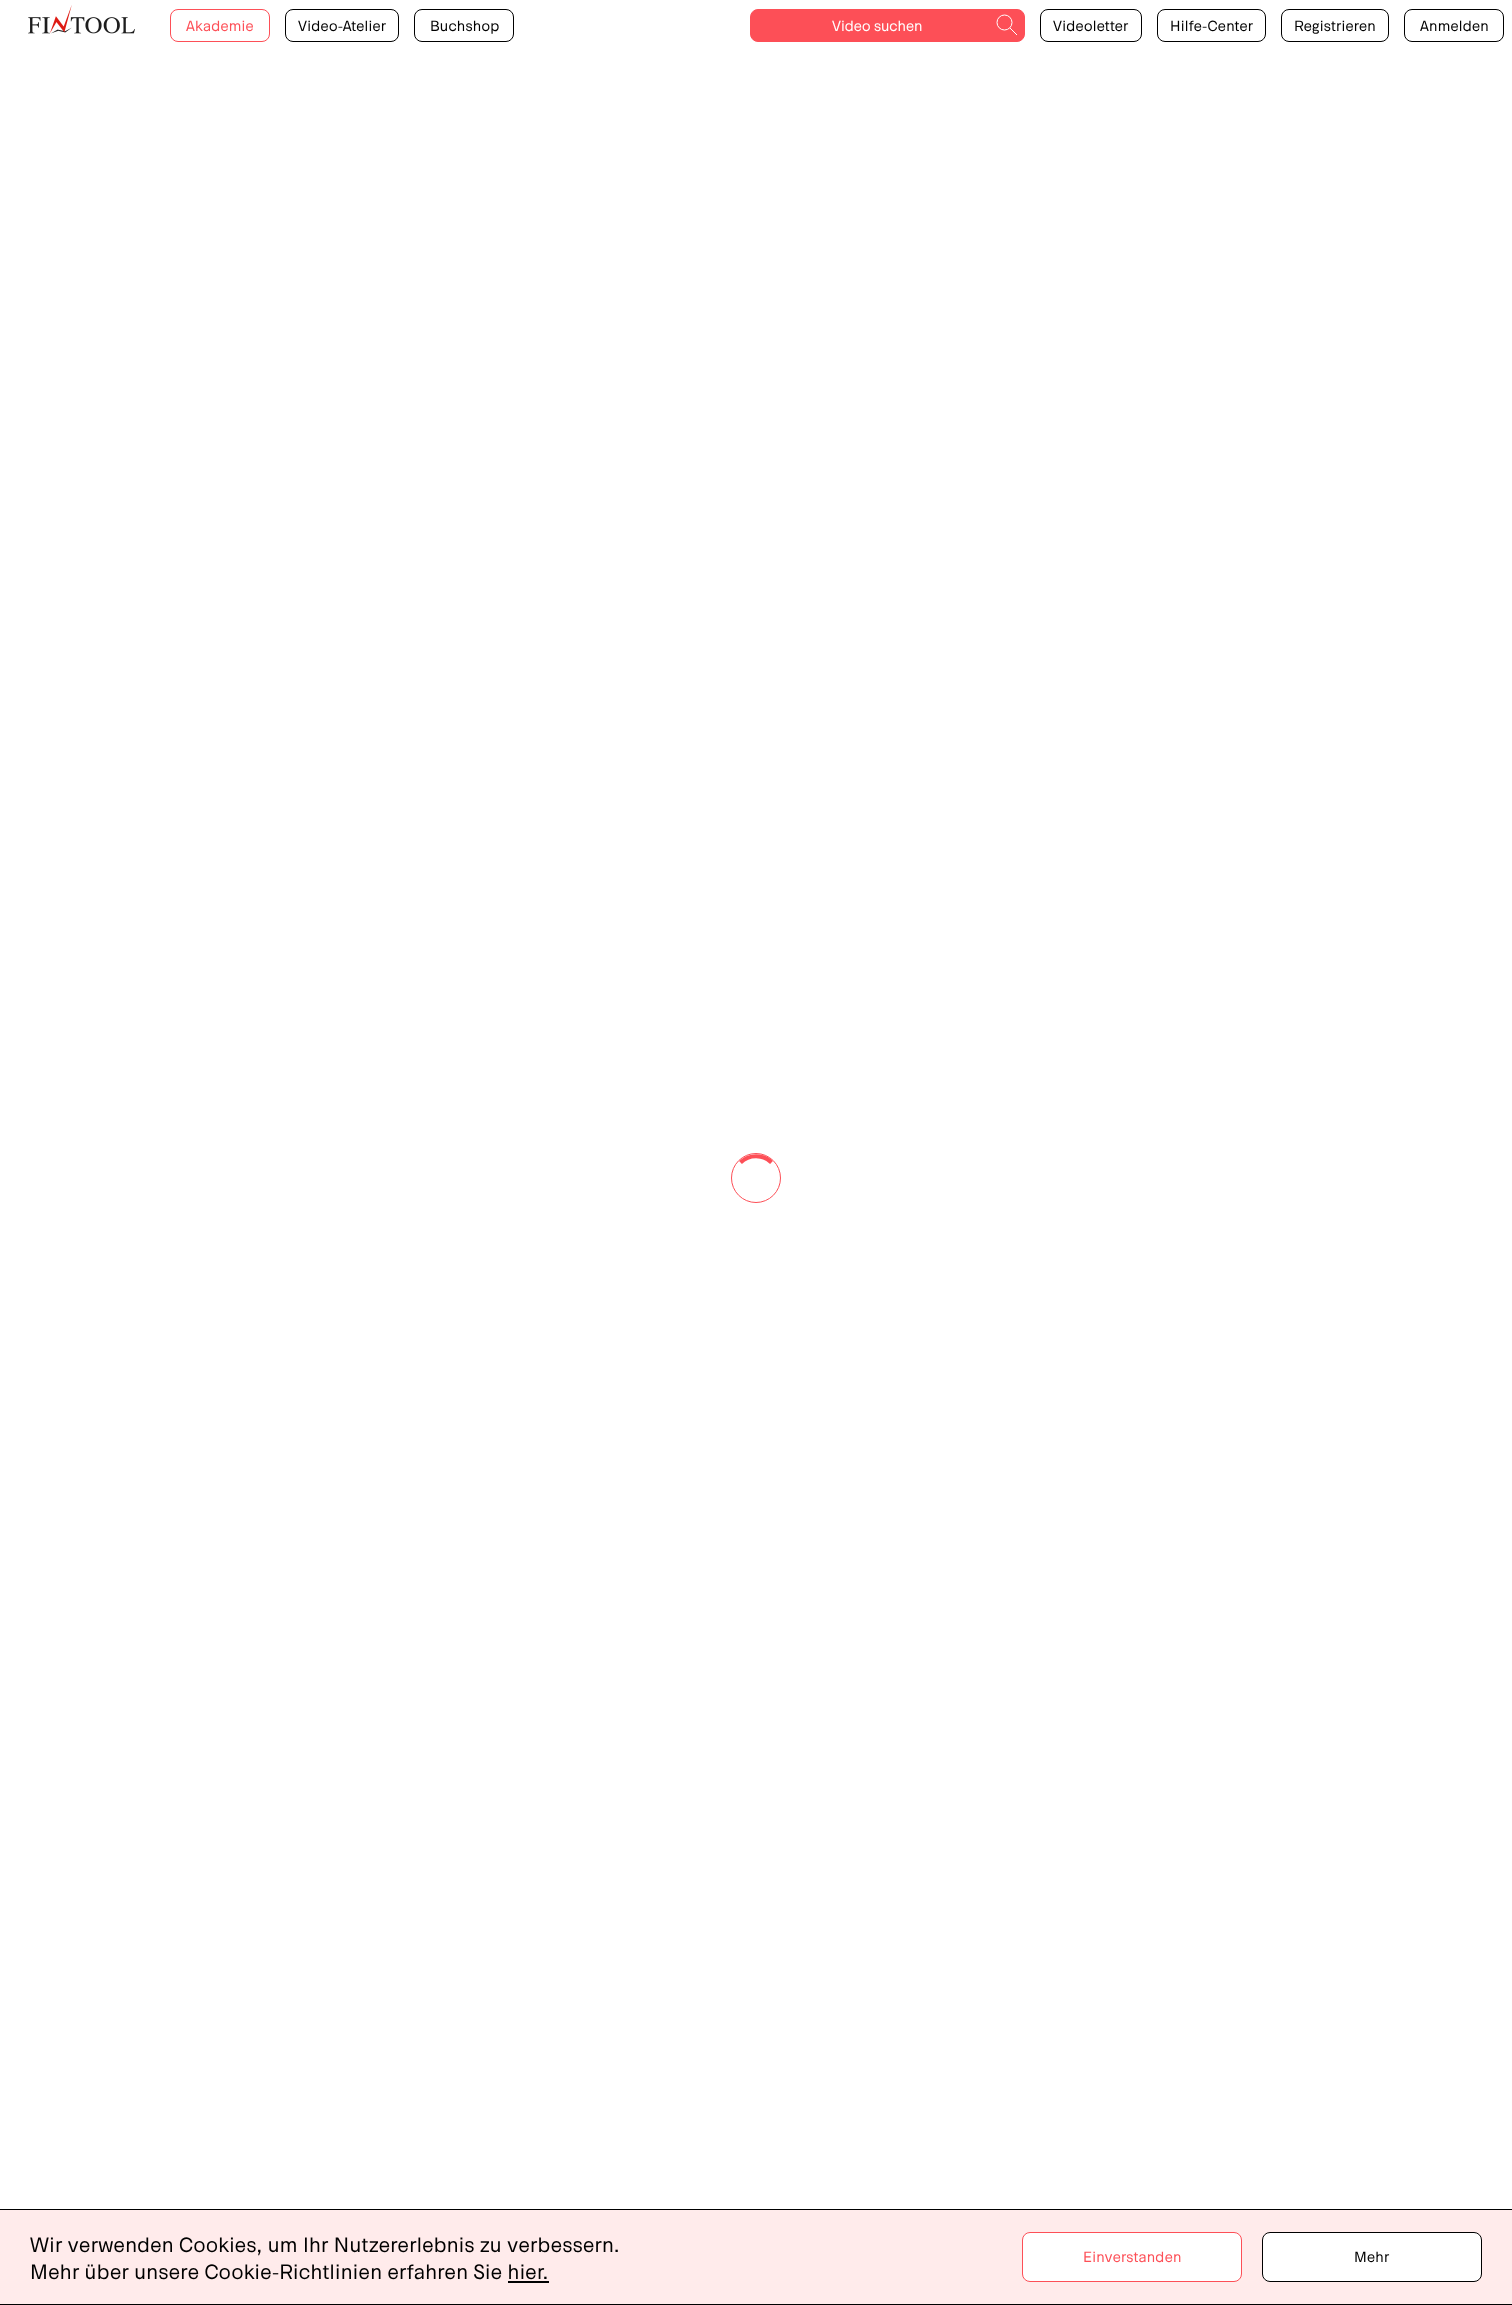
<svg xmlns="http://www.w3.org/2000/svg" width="1512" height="2305">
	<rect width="100%" height="100%" fill="#FFFFFF" />
	<image x="28" y="5" width="107" height="29" href="assets/img1.png" />
	<rect x="170.5" y="9.5" width="99" height="32" rx="7.5" fill="none" stroke="#FD4F57" />
	<text x="186" y="31" font-family="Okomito" font-size="15" letter-spacing="0.25" fill="#FD4F57">Akademie</text>
	<rect x="285.5" y="9.5" width="113" height="32" rx="7.5" fill="none" stroke="#000000" />
	<text x="298" y="31" font-family="Okomito" font-size="15" letter-spacing="0.25" fill="#000000">Video-Atelier</text>
	<rect x="414.5" y="9.5" width="99" height="32" rx="7.5" fill="none" stroke="#000000" />
	<text x="430" y="31" font-family="Okomito" font-size="15" letter-spacing="0.25" fill="#000000">Buchshop</text>
	<rect x="750.5" y="9.5" width="274" height="32" rx="7.5" fill="#FD4F57" stroke="#FD4F57" />
	<text x="832" y="31" font-family="Okomito" font-size="15" fill="#FFFFFF">Video suchen</text>
	<circle cx="1004.5" cy="22.5" r="7.5" fill="none" stroke="#FFFFFF" />
	<path d="M1010 28L1017 35" fill="none" stroke="#FFFFFF" />
	<rect x="1040.5" y="9.5" width="101" height="32" rx="7.5" fill="none" stroke="#000000" />
	<text x="1053" y="31" font-family="Okomito" font-size="15" letter-spacing="0.25" fill="#000000">Videoletter</text>
	<rect x="1157.5" y="9.5" width="108" height="32" rx="7.5" fill="none" stroke="#000000" />
	<text x="1170" y="31" font-family="Okomito" font-size="15" letter-spacing="0.25" fill="#000000">Hilfe-Center</text>
	<rect x="1281.5" y="9.5" width="107" height="32" rx="7.5" fill="none" stroke="#000000" />
	<text x="1294" y="31" font-family="Okomito" font-size="15" letter-spacing="0.25" fill="#000000">Registrieren</text>
	<rect x="1404.5" y="9.5" width="99" height="32" rx="7.5" fill="none" stroke="#000000" />
	<text x="1420" y="31" font-family="Okomito" font-size="15" letter-spacing="0.25" fill="#000000">Anmelden</text>
	<circle cx="756" cy="1178" r="24.5" fill="none" stroke="#FD4F57" />
	<path d="M740.5 1162.5C749 1154 763 1154 771.5 1162.5M740.5 1162.5C749 1154 763 1154 771.5 1162.5M740.5 1162.5C749 1154 763 1154 771.5 1162.5M740.5 1162.5C749 1154 763 1154 771.5 1162.5" fill="none" stroke="#FD4F57" stroke-width="4" />
	<rect x="0" y="2210" width="1512" height="94" fill="#FFEBEB" />
	<rect x="0" y="2209" width="1512" height="1" fill="#000000" />
	<rect x="0" y="2304" width="1512" height="1" fill="#000000" />
	<g font-family="Okomito" font-size="21" letter-spacing="0.35" fill="#000000">
		<text x="30" y="2252">Wir verwenden Cookies, um Ihr Nutzererlebnis zu verbessern.</text>
		<text x="30" y="2279">Mehr über unsere Cookie-Richtlinien erfahren Sie hier.</text>
	</g>
	<rect x="508" y="2281" width="41" height="2" fill="#000000" />
	<rect x="1022.5" y="2232.5" width="219" height="49" rx="7.5" fill="#FFFFFF" stroke="#FD4F57" />
	<text x="1083" y="2262" font-family="Okomito" font-size="15" letter-spacing="0.25" fill="#FD4F57">Einverstanden</text>
	<rect x="1262.5" y="2232.5" width="219" height="49" rx="7.5" fill="#FFFFFF" stroke="#000000" />
	<text x="1354" y="2262" font-family="Okomito" font-size="15" letter-spacing="0.25" fill="#000000">Mehr</text>
</svg>
